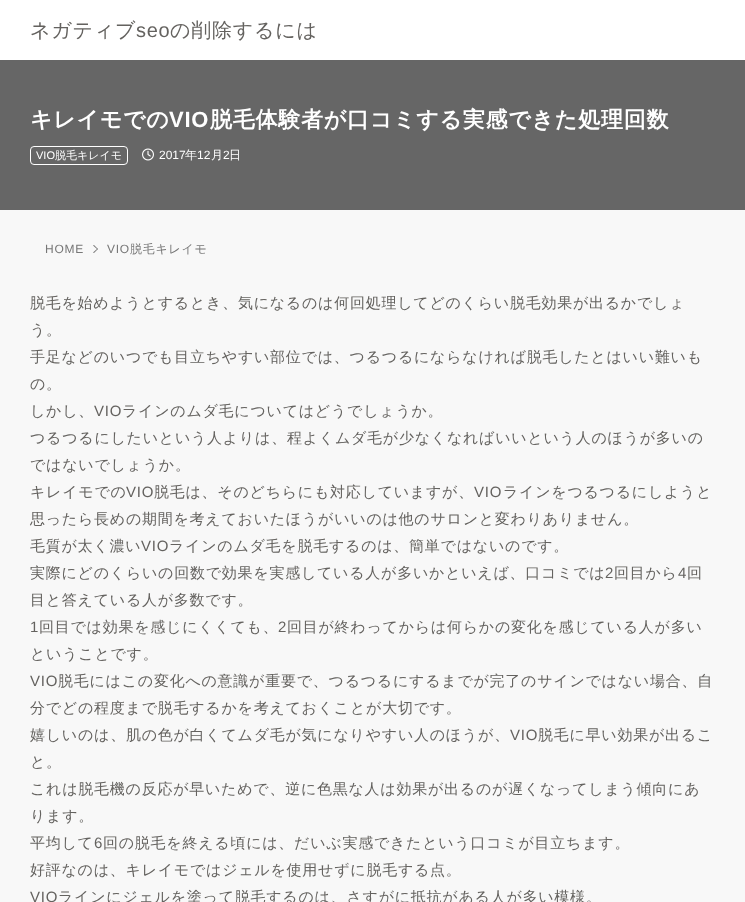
<svg xmlns="http://www.w3.org/2000/svg" width="745" height="902">
	<rect width="100%" height="100%" fill="#F8F8F8" />
	<rect x="0" y="0" width="745" height="60" fill="#FFFFFF" />
	<text x="30" y="37" font-family="WenQuanYi Zen Hei" font-size="20" font-weight="500" letter-spacing="0.75" fill="#64625F">ネガティブ</text>
	<text x="136" y="37" font-family="Liberation Sans" font-size="20" letter-spacing="0.75" fill="#64625F">seo</text>
	<text x="170" y="37" font-family="WenQuanYi Zen Hei" font-size="20" font-weight="500" letter-spacing="0.75" fill="#64625F">の削除するには</text>
	<rect x="0" y="60" width="745" height="150" fill="#666666" />
	<text x="30" y="127" font-family="WenQuanYi Zen Hei" font-size="22" font-weight="700" letter-spacing="0.75" fill="#FFFFFF">キレイモでの</text>
	<text x="169" y="127" font-family="Liberation Sans" font-size="22" font-weight="700" letter-spacing="0.75" fill="#FFFFFF">VIO</text>
	<text x="210" y="127" font-family="WenQuanYi Zen Hei" font-size="22" font-weight="700" letter-spacing="0.75" fill="#FFFFFF">脱毛体験者が口コミする実感できた処理回数</text>
	<rect x="30.5" y="146.5" width="97" height="18" rx="3.5" fill="none" stroke="#FFFFFF" />
	<text x="36" y="159" font-family="Liberation Sans" font-size="11" fill="#FFFFFF">VIO</text>
	<text x="55" y="159" font-family="WenQuanYi Zen Hei" font-size="11" font-weight="500" fill="#FFFFFF">脱毛キレイモ</text>
	<image x="142" y="148" width="12" height="13" href="assets/img1.png" />
	<text x="159" y="159" font-family="Liberation Sans" font-size="12" fill="#FFFFFF">2017</text>
	<text x="185" y="159" font-family="WenQuanYi Zen Hei" font-size="12" font-weight="500" fill="#FFFFFF">年</text>
	<text x="197" y="159" font-family="Liberation Sans" font-size="12" fill="#FFFFFF">12</text>
	<text x="211" y="159" font-family="WenQuanYi Zen Hei" font-size="12" font-weight="500" fill="#FFFFFF">月</text>
	<text x="223" y="159" font-family="Liberation Sans" font-size="12" fill="#FFFFFF">2</text>
	<text x="229" y="159" font-family="WenQuanYi Zen Hei" font-size="12" font-weight="500" fill="#FFFFFF">日</text>
	<text x="45" y="253" font-family="Liberation Sans" font-size="12" letter-spacing="0.75" fill="#777777">HOME</text>
	<path d="M94 245L98 249L97.5 249.5L93 245.5Z" fill="#777777" />
	<path d="M97.5 248.5L98 249L94 253L93 252.5Z" fill="#777777" />
	<text x="107" y="253" font-family="Liberation Sans" font-size="12" letter-spacing="0.75" fill="#777777">VIO</text>
	<text x="130" y="253" font-family="WenQuanYi Zen Hei" font-size="12" font-weight="500" letter-spacing="0.75" fill="#777777">脱毛キレイモ</text>
	<g font-family="WenQuanYi Zen Hei" font-size="15" font-weight="500" letter-spacing="0.75" fill="#64625F">
		<text x="30" y="308">脱毛を始めようとするとき、気になるのは何回処理してどのくらい脱毛効果が出るかでしょ</text>
		<text x="30" y="335">う。</text>
		<text x="30" y="362">手足などのいつでも目立ちやすい部位では、つるつるにならなければ脱毛したとはいい難いも</text>
		<text x="30" y="389">の。</text>
		<text x="30" y="416">しかし、</text>
	</g>
	<text x="94" y="416" font-family="Liberation Sans" font-size="15" letter-spacing="0.75" fill="#64625F">VIO</text>
	<g font-family="WenQuanYi Zen Hei" font-size="15" font-weight="500" letter-spacing="0.75" fill="#64625F">
		<text x="122" y="416">ラインのムダ毛についてはどうでしょうか。</text>
		<text x="30" y="443">つるつるにしたいという人よりは、程よくムダ毛が少なくなればいいという人のほうが多いの</text>
		<text x="30" y="470">ではないでしょうか。</text>
		<text x="30" y="497">キレイモでの</text>
	</g>
	<text x="126" y="497" font-family="Liberation Sans" font-size="15" letter-spacing="0.75" fill="#64625F">VIO</text>
	<text x="154" y="497" font-family="WenQuanYi Zen Hei" font-size="15" font-weight="500" letter-spacing="0.75" fill="#64625F">脱毛は、そのどちらにも対応していますが、</text>
	<text x="474" y="497" font-family="Liberation Sans" font-size="15" letter-spacing="0.75" fill="#64625F">VIO</text>
	<g font-family="WenQuanYi Zen Hei" font-size="15" font-weight="500" letter-spacing="0.75" fill="#64625F">
		<text x="503" y="497">ラインをつるつるにしようと</text>
		<text x="30" y="524">思ったら長めの期間を考えておいたほうがいいのは他のサロンと変わりありません。</text>
		<text x="30" y="551">毛質が太く濃い</text>
	</g>
	<text x="141" y="551" font-family="Liberation Sans" font-size="15" letter-spacing="0.75" fill="#64625F">VIO</text>
	<g font-family="WenQuanYi Zen Hei" font-size="15" font-weight="500" letter-spacing="0.75" fill="#64625F">
		<text x="169" y="551">ラインのムダ毛を脱毛するのは、簡単ではないのです。</text>
		<text x="30" y="578">実際にどのくらいの回数で効果を実感している人が多いかといえば、口コミでは</text>
	</g>
	<text x="605" y="578" font-family="Liberation Sans" font-size="15" letter-spacing="0.75" fill="#64625F">2</text>
	<text x="614" y="578" font-family="WenQuanYi Zen Hei" font-size="15" font-weight="500" letter-spacing="0.75" fill="#64625F">回目から</text>
	<text x="678" y="578" font-family="Liberation Sans" font-size="15" letter-spacing="0.75" fill="#64625F">4</text>
	<g font-family="WenQuanYi Zen Hei" font-size="15" font-weight="500" letter-spacing="0.75" fill="#64625F">
		<text x="687" y="578">回</text>
		<text x="30" y="605">目と答えている人が多数です。</text>
	</g>
	<text x="30" y="632" font-family="Liberation Sans" font-size="15" letter-spacing="0.75" fill="#64625F">1</text>
	<text x="39" y="632" font-family="WenQuanYi Zen Hei" font-size="15" font-weight="500" letter-spacing="0.75" fill="#64625F">回目では効果を感じにくくても、</text>
	<text x="278" y="632" font-family="Liberation Sans" font-size="15" letter-spacing="0.75" fill="#64625F">2</text>
	<g font-family="WenQuanYi Zen Hei" font-size="15" font-weight="500" letter-spacing="0.75" fill="#64625F">
		<text x="287" y="632">回目が終わってからは何らかの変化を感じている人が多い</text>
		<text x="30" y="659">ということです。</text>
	</g>
	<text x="30" y="686" font-family="Liberation Sans" font-size="15" letter-spacing="0.75" fill="#64625F">VIO</text>
	<g font-family="WenQuanYi Zen Hei" font-size="15" font-weight="500" letter-spacing="0.75" fill="#64625F">
		<text x="58" y="686">脱毛にはこの変化への意識が重要で、つるつるにするまでが完了のサインではない場合、自</text>
		<text x="30" y="713">分でどの程度まで脱毛するかを考えておくことが大切です。</text>
		<text x="30" y="740">嬉しいのは、肌の色が白くてムダ毛が気になりやすい人のほうが、</text>
	</g>
	<text x="510" y="740" font-family="Liberation Sans" font-size="15" letter-spacing="0.75" fill="#64625F">VIO</text>
	<g font-family="WenQuanYi Zen Hei" font-size="15" font-weight="500" letter-spacing="0.75" fill="#64625F">
		<text x="538" y="740">脱毛に早い効果が出るこ</text>
		<text x="30" y="767">と。</text>
		<text x="30" y="794">これは脱毛機の反応が早いためで、逆に色黒な人は効果が出るのが遅くなってしまう傾向にあ</text>
		<text x="30" y="821">ります。</text>
		<text x="30" y="848">平均して</text>
	</g>
	<text x="94" y="848" font-family="Liberation Sans" font-size="15" letter-spacing="0.75" fill="#64625F">6</text>
	<g font-family="WenQuanYi Zen Hei" font-size="15" font-weight="500" letter-spacing="0.75" fill="#64625F">
		<text x="103" y="848">回の脱毛を終える頃には、だいぶ実感できたという口コミが目立ちます。</text>
		<text x="30" y="875">好評なのは、キレイモではジェルを使用せずに脱毛する点。</text>
	</g>
	<text x="30" y="902" font-family="Liberation Sans" font-size="15" letter-spacing="0.75" fill="#64625F">VIO</text>
	<text x="58" y="902" font-family="WenQuanYi Zen Hei" font-size="15" font-weight="500" letter-spacing="0.75" fill="#64625F">ラインにジェルを塗って脱毛するのは、さすがに抵抗がある人が多い模様。</text>
</svg>
